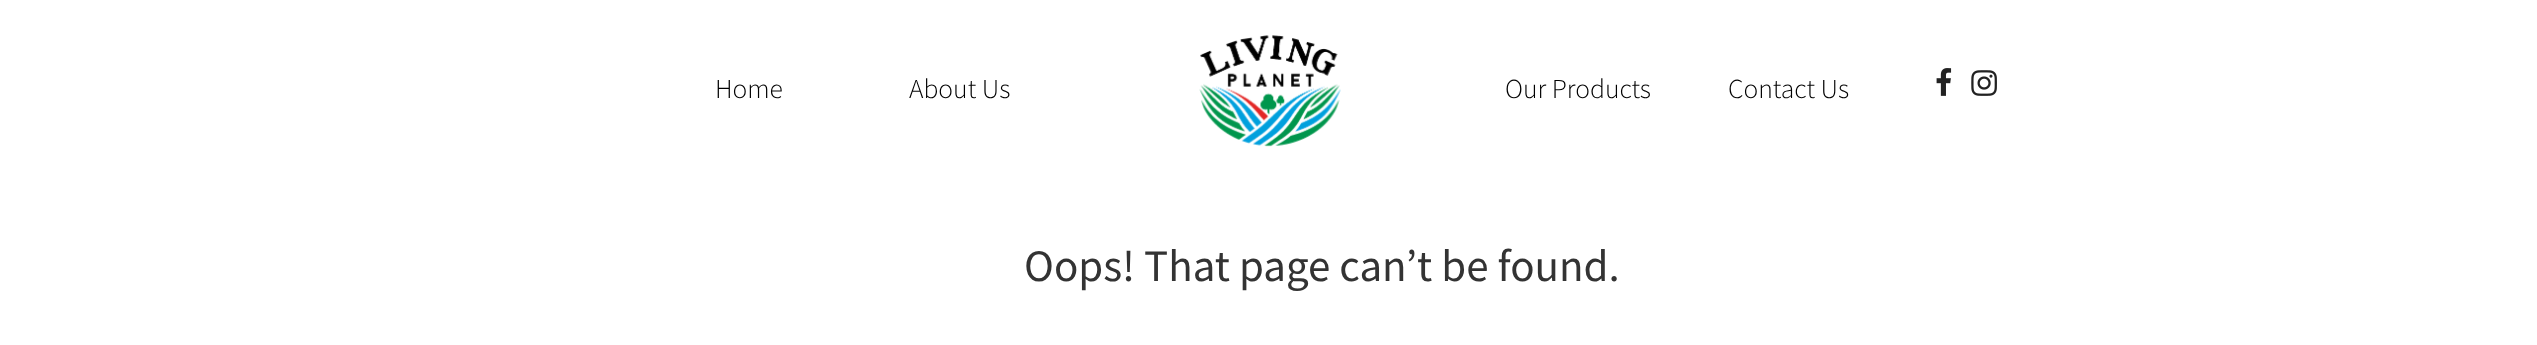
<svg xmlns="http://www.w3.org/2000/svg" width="2537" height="345">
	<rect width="100%" height="100%" fill="#FFFFFF" />
	<g font-family="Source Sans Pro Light" font-size="27.5" font-weight="300" fill="#000000">
		<text x="715" y="98">Home</text>
		<text x="909" y="98">About Us</text>
	</g>
	<image x="1199" y="35" width="142" height="112" href="assets/img1.png" />
	<g font-family="Source Sans Pro Light" font-size="27.5" font-weight="300" fill="#000000">
		<text x="1505" y="98">Our Products</text>
		<text x="1728" y="98">Contact Us</text>
	</g>
	<image x="1936" y="68" width="16" height="28" href="assets/img2.png" />
	<image x="1971" y="70" width="26" height="26" href="assets/img3.png" />
	<text x="1024" y="281" font-family="Source Sans Pro" font-size="45" fill="#333333">Oops! That page can’t be found.</text>
</svg>
